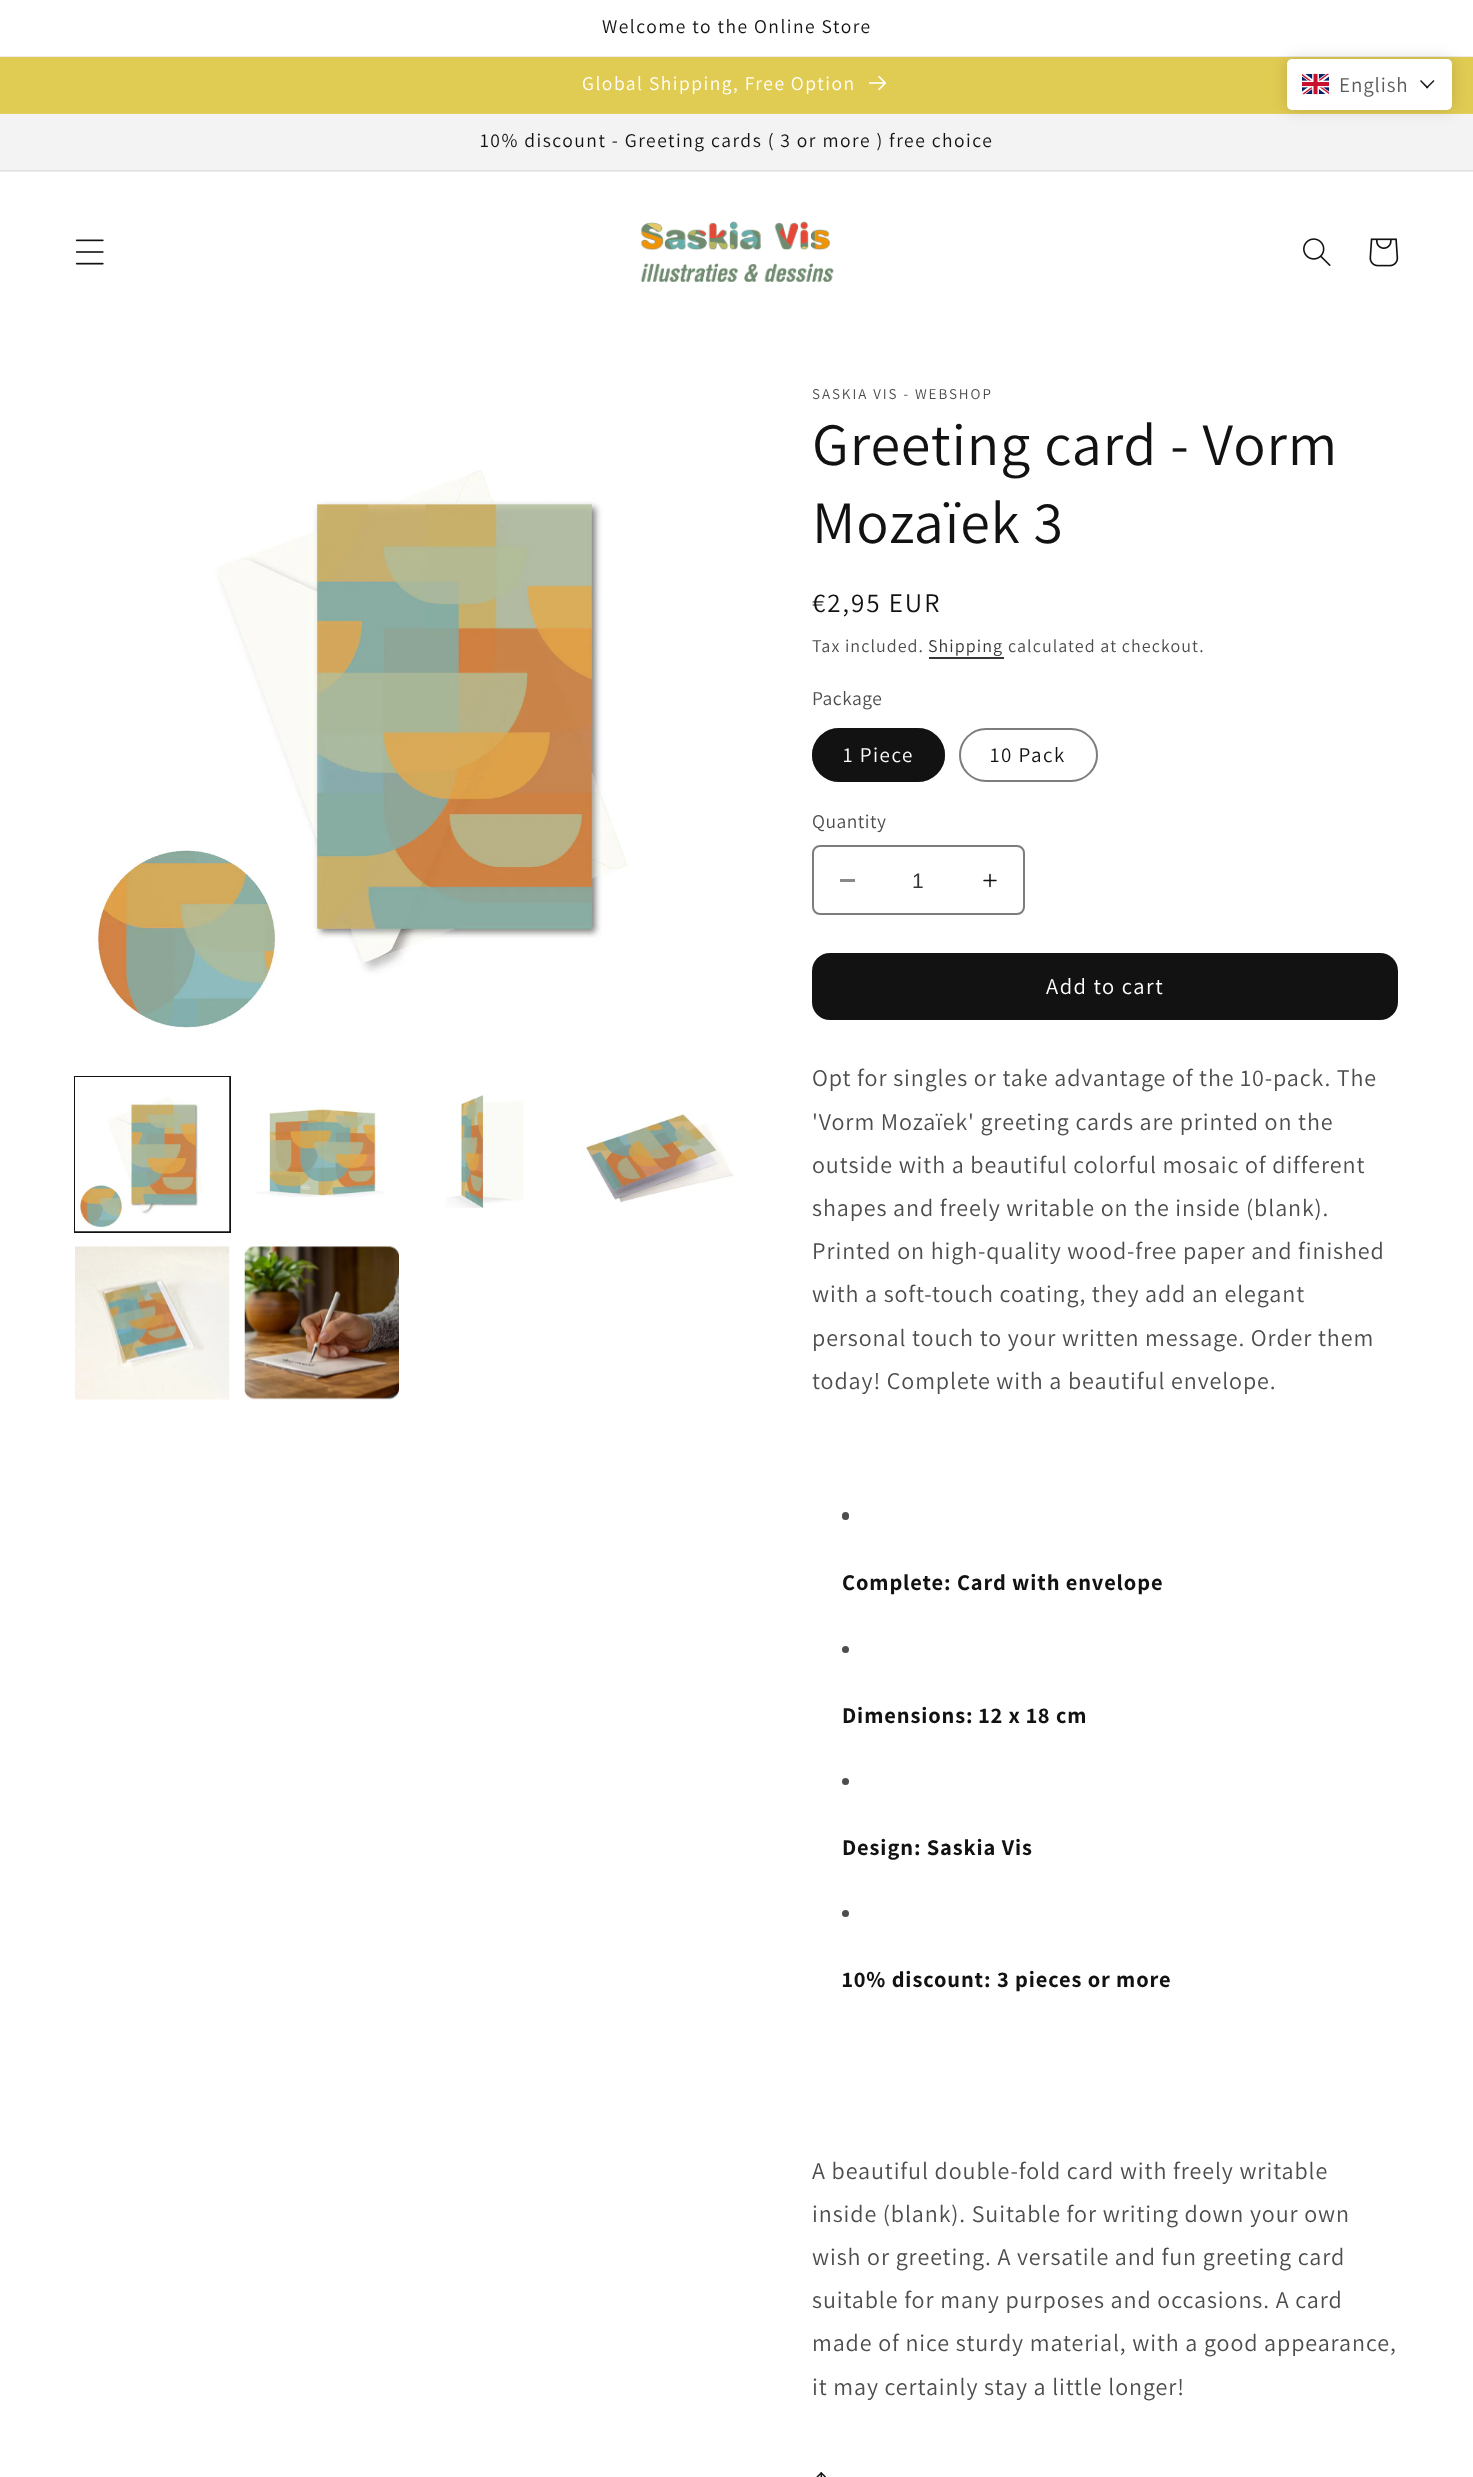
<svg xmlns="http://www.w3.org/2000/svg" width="1473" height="2477">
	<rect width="100%" height="100%" fill="#FFFFFF" />
	<rect x="0" y="171" width="1473" height="1" fill="#ECECEC" />
	<rect x="0" y="56" width="1473" height="1" fill="#ECECEC" />
	<text x="602" y="33" font-family="Assistant" font-size="19.5" letter-spacing="1.5" fill="#121212">Welcome to the Online Store</text>
	<rect x="0" y="57" width="1473" height="56" fill="#E0CB53" />
	<rect x="0" y="113" width="1473" height="1" fill="#E2CF61" />
	<text x="582" y="90" font-family="Assistant" font-size="19.5" letter-spacing="1.5" fill="#FFFFFF">Global Shipping, Free Option</text>
	<image x="869" y="75" width="18" height="16" href="assets/img1.png" />
	<rect x="0" y="114" width="1473" height="56" fill="#F3F3F3" />
	<rect x="0" y="170" width="1473" height="1" fill="#E1E1E1" />
	<text x="480" y="147" font-family="Assistant" font-size="19.5" letter-spacing="1.5" fill="#121212">10% discount - Greeting cards ( 3 or more ) free choice</text>
	<rect x="1287" y="59" width="165" height="51" rx="5" fill="#000000" fill-opacity="0.15" filter="blur(7.5px)" />
	<rect x="1287" y="59" width="165" height="51" rx="5" fill="#FFFFFF" />
	<image x="1302" y="73" width="27" height="22" href="assets/img2.png" />
	<text x="1339" y="92" font-family="Assistant" font-size="21" letter-spacing="0.9" fill="#5C5C5C">English</text>
	<path d="M1433.5 80L1434.5 81L1427 88.5L1426 87.5Z" fill="#1A1A1A" />
	<path d="M1421 80L1428.5 87.5L1427 88.5L1420 81Z" fill="#1A1A1A" />
	<image x="75" y="239" width="29" height="26" href="assets/img3.png" />
	<image x="640" y="221" width="194" height="61" href="assets/img4.png" />
	<image x="1303" y="238" width="28" height="28" href="assets/img5.png" />
	<image x="1369" y="238" width="30" height="29" href="assets/img6.png" />
	<image x="94" y="470" width="534" height="558" href="assets/img7.png" />
	<rect x="75" y="1077" width="155" height="155" fill="none" stroke="#121212" stroke-width="2" />
	<image x="75" y="1077" width="155" height="155" href="assets/img8.png" />
	<image x="256" y="1107" width="128" height="90" href="assets/img9.png" />
	<image x="446" y="1095" width="78" height="113" href="assets/img10.png" />
	<image x="582" y="1112" width="152" height="91" href="assets/img11.png" />
	<image x="75" y="1246" width="155" height="154" href="assets/img12.png" />
	<image x="244" y="1246" width="155" height="154" href="assets/img13.png" />
	<text x="812" y="399" font-family="Assistant" font-size="15" letter-spacing="1.95" fill="#4D4D4D">SASKIA VIS - WEBSHOP</text>
	<g font-family="Assistant" font-size="60" letter-spacing="0.9" fill="#121212">
		<text x="812" y="465">Greeting card - Vorm</text>
		<text x="812" y="543">Mozaïek 3</text>
	</g>
	<text x="812" y="612" font-family="Assistant" font-size="27" letter-spacing="1.95" fill="#121212">€2,95 EUR</text>
	<text x="812" y="652" font-family="Assistant" font-size="18" letter-spacing="1.05" fill="#4D4D4D">Tax included.</text>
	<text x="928" y="652" font-family="Assistant" font-size="18" letter-spacing="1.05" fill="#363636">Shipping</text>
	<rect x="929" y="657" width="75" height="2" fill="#363636" />
	<text x="1008" y="652" font-family="Assistant" font-size="18" letter-spacing="1.05" fill="#4D4D4D">calculated at checkout.</text>
	<text x="812" y="705" font-family="Assistant" font-size="19.5" letter-spacing="0.5" fill="#4D4D4D">Package</text>
	<rect x="812" y="728" width="133" height="54" rx="27" fill="#121212" />
	<rect x="813" y="729" width="131" height="52" rx="26" fill="none" stroke="#121212" stroke-opacity="0.55" stroke-width="2" />
	<text x="843" y="762" font-family="Assistant" font-size="21" letter-spacing="1.5" fill="#FFFFFF">1 Piece</text>
	<rect x="960" y="729" width="137" height="52" rx="26" fill="none" stroke="#7D7D7D" stroke-width="2" />
	<text x="990" y="762" font-family="Assistant" font-size="21" letter-spacing="1.5" fill="#121212">10 Pack</text>
	<text x="812" y="828" font-family="Assistant" font-size="19.5" letter-spacing="0.5" fill="#4D4D4D">Quantity</text>
	<rect x="840" y="879" width="15" height="3" fill="#898989" />
	<image x="983" y="873" width="14" height="15" href="assets/img14.png" />
	<rect x="813" y="846" width="211" height="68" rx="7" fill="none" stroke="#7D7D7D" stroke-width="2" />
	<text x="912" y="888" font-family="Liberation Sans" font-size="21" fill="#363636">1</text>
	<rect x="812" y="953" width="586" height="67" rx="18" fill="#121212" />
	<text x="1046" y="994" font-family="Assistant" font-size="22.5" letter-spacing="1.5" fill="#FFFFFF">Add to cart</text>
	<g font-family="Assistant" font-size="24" letter-spacing="0.9" fill="#4D4D4D">
		<text x="812" y="1086">Opt for singles or take advantage of the 10-pack. The</text>
		<text x="812" y="1130">'Vorm Mozaïek' greeting cards are printed on the</text>
		<text x="812" y="1173">outside with a beautiful colorful mosaic of different</text>
		<text x="812" y="1216">shapes and freely writable on the inside (blank).</text>
		<text x="812" y="1259">Printed on high-quality wood-free paper and finished</text>
		<text x="812" y="1302">with a soft-touch coating, they add an elegant</text>
		<text x="812" y="1346">personal touch to your written message. Order them</text>
		<text x="812" y="1389">today! Complete with a beautiful envelope.</text>
	</g>
	<rect x="842" y="1512" width="7" height="8" rx="3.5" fill="#4D4D4D" />
	<text x="842" y="1590" font-family="Assistant" font-size="22.5" font-weight="700" letter-spacing="0.9" fill="#121212">Complete: Card with envelope</text>
	<circle cx="845.5" cy="1649.5" r="3.5" fill="#4D4D4D" />
	<text x="842" y="1723" font-family="Assistant" font-size="22.5" font-weight="700" letter-spacing="0.9" fill="#121212">Dimensions: 12 x 18 cm</text>
	<circle cx="845.5" cy="1781.5" r="3.5" fill="#4D4D4D" />
	<text x="842" y="1855" font-family="Assistant" font-size="22.5" font-weight="700" letter-spacing="0.9" fill="#121212">Design: Saskia Vis</text>
	<circle cx="845.5" cy="1913.5" r="3.5" fill="#4D4D4D" />
	<text x="842" y="1987" font-family="Assistant" font-size="22.5" font-weight="700" letter-spacing="0.9" fill="#121212">10% discount: 3 pieces or more</text>
	<g font-family="Assistant" font-size="24" letter-spacing="0.9" fill="#4D4D4D">
		<text x="812" y="2179">A beautiful double-fold card with freely writable</text>
		<text x="812" y="2222">inside (blank). Suitable for writing down your own</text>
		<text x="812" y="2265">wish or greeting. A versatile and fun greeting card</text>
		<text x="812" y="2308">suitable for many purposes and occasions. A card</text>
		<text x="812" y="2351">made of nice sturdy material, with a good appearance,</text>
		<text x="812" y="2395">it may certainly stay a little longer!</text>
	</g>
	<image x="816" y="2472" width="10" height="5" href="assets/img15.png" />
</svg>
